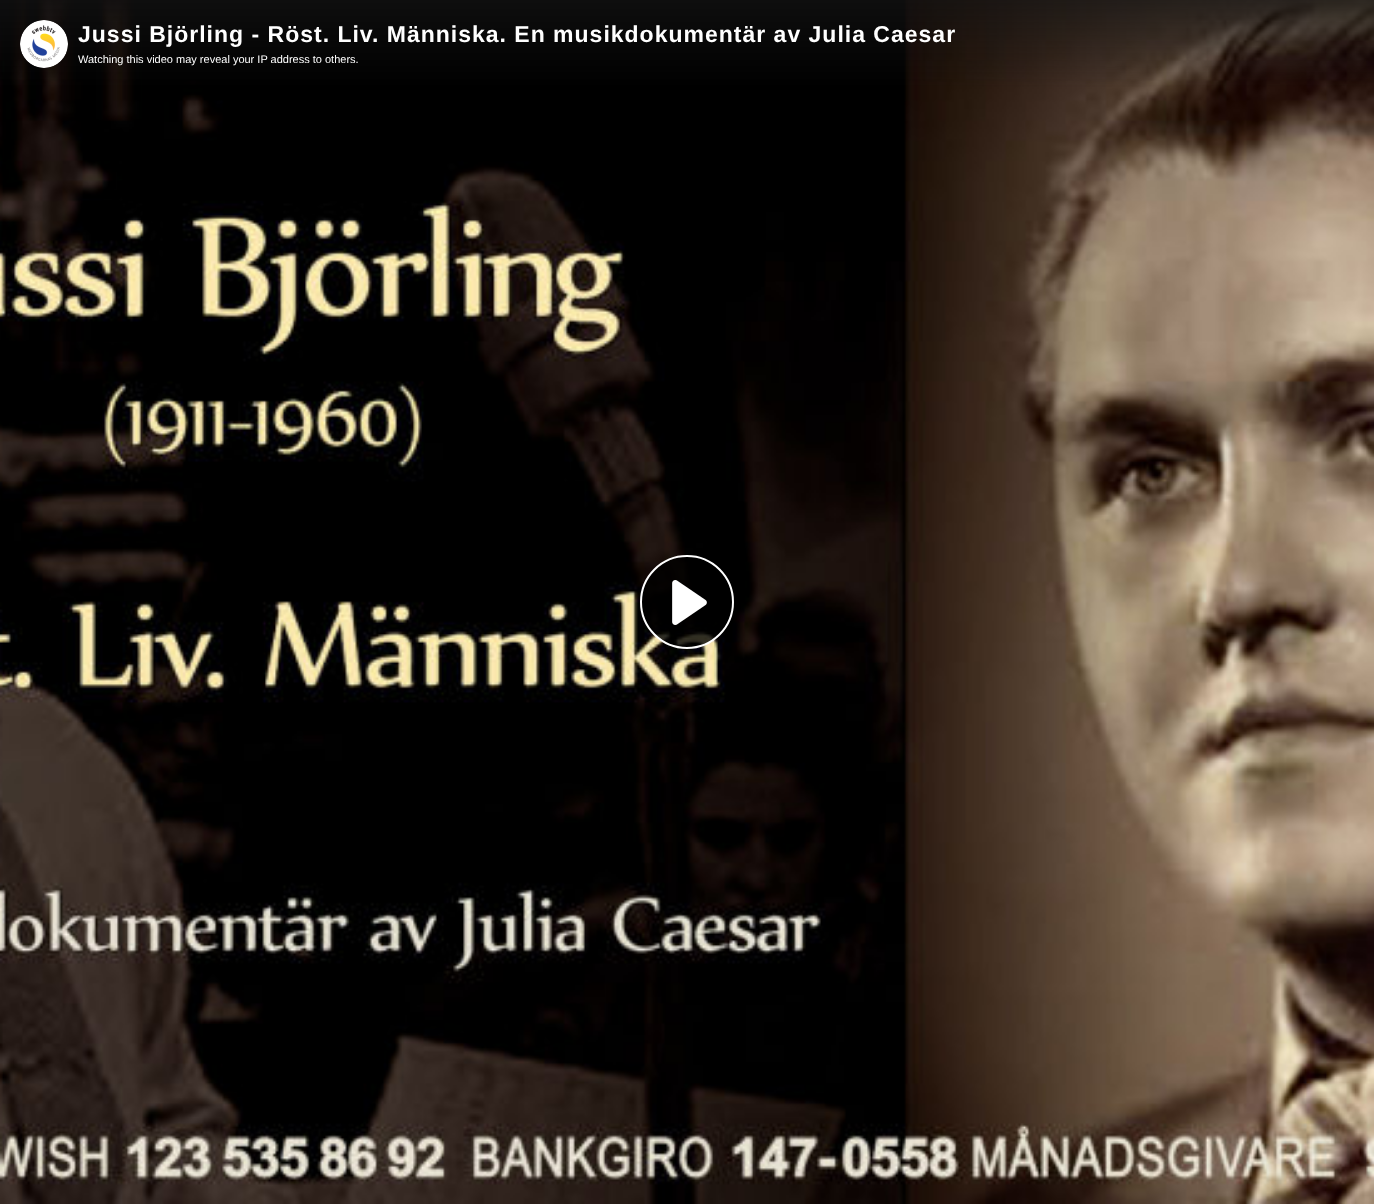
<svg xmlns="http://www.w3.org/2000/svg" width="1374" height="1204">
	<rect width="100%" height="100%" fill="#FFFFFF" />
	<image x="0" y="0" width="1374" height="1204" href="assets/img1.png" />
	<image x="20" y="20" width="48" height="48" href="assets/img2.png" />
	<text x="78" y="42" font-family="Liberation Sans" font-size="23" font-weight="700" letter-spacing="1" fill="#FFFFFF">Jussi Björling - Röst. Liv. Människa. En musikdokumentär av Julia Caesar</text>
	<text x="78" y="63" font-family="Liberation Sans" font-size="11" fill="#FFFFFF">Watching this video may reveal your IP address to others.</text>
	<circle cx="687" cy="602" r="46" fill="#000000" fill-opacity="0.8" stroke="#FFFFFF" stroke-width="2" />
	<image x="672" y="580" width="35" height="45" href="assets/img3.png" />
</svg>
